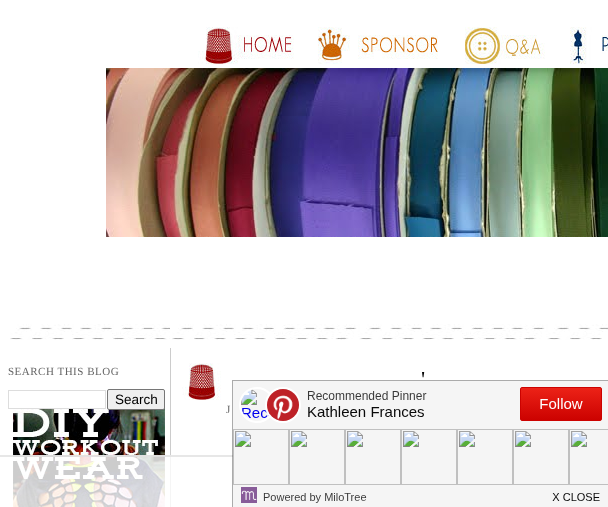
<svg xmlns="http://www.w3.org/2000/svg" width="608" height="507">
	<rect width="100%" height="100%" fill="#FFFFFF" />
	<image x="198" y="27" width="96" height="37" href="assets/img1.png" />
	<image x="318" y="27" width="120" height="37" href="assets/img2.png" />
	<image x="465" y="27" width="80" height="37" href="assets/img3.png" />
	<image x="570" y="27" width="38" height="37" href="assets/img4.png" />
	<image x="106" y="68" width="502" height="169" href="assets/img5.png" />
	<image x="10" y="324" width="160" height="16" href="assets/img6.png" />
	<text x="8" y="375" font-family="Liberation Serif" font-size="11" letter-spacing="0.5" fill="#666666">SEARCH THIS BLOG</text>
	<image x="13" y="408" width="152" height="99" href="assets/img7.png" />
	<rect x="8.5" y="390.5" width="97" height="18" fill="none" stroke="#DDDDDD" />
	<rect x="107.5" y="389.5" width="57" height="20" rx="1.5" fill="#EFEFEF" stroke="#767676" />
	<text x="115" y="404" font-family="Liberation Sans" font-size="13.5" fill="#000000">Search</text>
	<image x="172" y="324" width="436" height="16" href="assets/img8.png" />
	<rect x="170" y="348" width="1" height="159" fill="#CCCCCC" />
	<image x="182" y="363" width="39" height="37" href="assets/img9.png" />
	<text x="421" y="387" font-family="Liberation Serif" font-size="23" fill="#000000">'</text>
	<text x="226" y="413" font-family="Liberation Serif" font-size="11" letter-spacing="0.5" fill="#666666">J</text>
	<rect x="13" y="455" width="158" height="52" fill="#FFFFFF" fill-opacity="0.8" />
	<rect x="0" y="455" width="233" height="2" fill="#E1E1E1" fill-opacity="0.8" />
	<rect x="232" y="380" width="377" height="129" fill="#2D2D2D" fill-opacity="0.4" filter="blur(0.5px)" />
	<image x="233" y="381" width="375" height="126" href="assets/img10.png" />
</svg>
